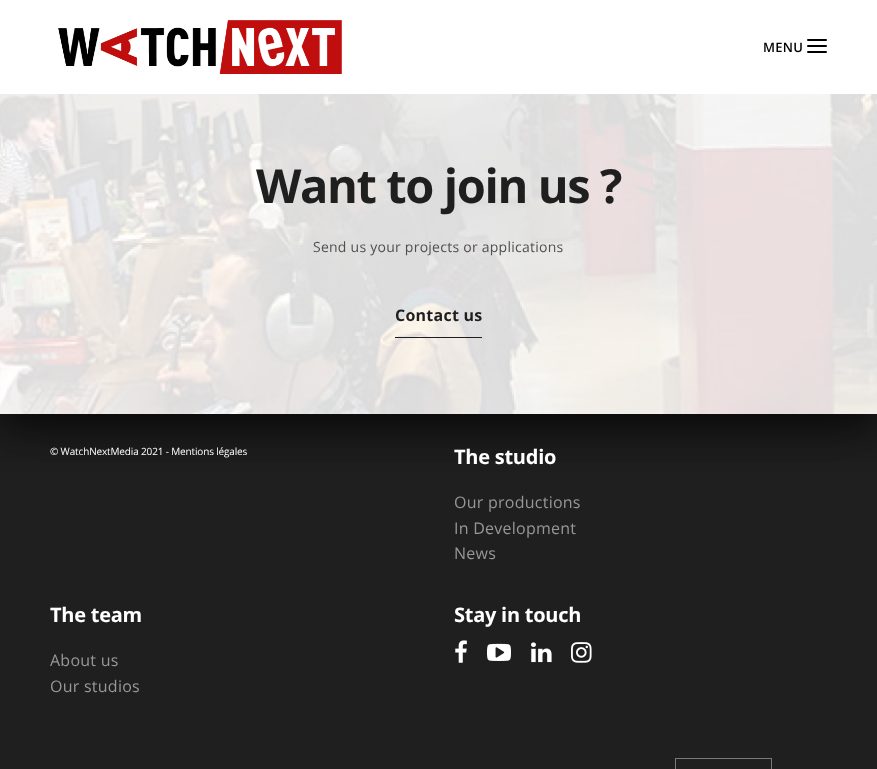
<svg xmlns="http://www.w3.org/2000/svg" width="877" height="769">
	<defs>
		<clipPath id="clip1"><rect x="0" y="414" width="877" height="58" /></clipPath>
		<clipPath id="clip2"><rect x="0" y="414" width="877" height="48" /></clipPath>
	</defs>
	<rect width="100%" height="100%" fill="#FFFFFF" />
	<rect x="0" y="414" width="877" height="355" fill="#1F1F1F" />
	<g clip-path="url(#clip1)">
		<rect x="0" y="-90" width="877" height="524" fill="#000000" fill-opacity="0.2" filter="blur(30px)" />
	</g>
	<g clip-path="url(#clip2)">
		<rect x="0" y="-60" width="877" height="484" fill="#000000" fill-opacity="0.7" filter="blur(20px)" />
	</g>
	<image x="58" y="20" width="284" height="54" href="assets/img1.png" />
	<text x="763" y="52" font-family="Open Sans" font-size="13" font-weight="600" letter-spacing="0.25" fill="#000000">MENU</text>
	<rect x="807" y="39" width="20" height="2" rx="1" fill="#000000" />
	<rect x="807" y="45" width="20" height="2" rx="1" fill="#000000" />
	<rect x="807" y="51" width="20" height="2" rx="1" fill="#000000" />
	<image x="0" y="94" width="877" height="320" href="assets/img2.png" />
	<text x="256" y="203" font-family="Open Sans" font-size="47" font-weight="700" letter-spacing="-1.4" fill="#1F1F1F">Want to join us ?</text>
	<text x="313" y="252" font-family="Open Sans" font-size="14" letter-spacing="0.25" fill="#505050">Send us your projects or applications</text>
	<rect x="395" y="337" width="87" height="1" fill="#1F1F1F" />
	<text x="395" y="321" font-family="Open Sans" font-size="16" font-weight="700" letter-spacing="0.25" fill="#1F1F1F">Contact us</text>
	<text x="50" y="455" font-family="Open Sans" font-size="10" letter-spacing="-0.15" fill="#FFFFFF">© WatchNextMedia 2021 - Mentions légales</text>
	<text x="454" y="464" font-family="Open Sans" font-size="20" font-weight="700" letter-spacing="-0.25" fill="#FFFFFF">The studio</text>
	<g font-family="Open Sans" font-size="16" letter-spacing="0.25" fill="#979797">
		<text x="454" y="508">Our productions</text>
		<text x="454" y="534">In Development</text>
		<text x="454" y="559">News</text>
	</g>
	<text x="50" y="622" font-family="Open Sans" font-size="20" font-weight="700" letter-spacing="-0.25" fill="#FFFFFF">The team</text>
	<g font-family="Open Sans" font-size="16" letter-spacing="0.25" fill="#979797">
		<text x="50" y="666">About us</text>
		<text x="50" y="692">Our studios</text>
	</g>
	<text x="454" y="622" font-family="Open Sans" font-size="20" font-weight="700" letter-spacing="-0.25" fill="#FFFFFF">Stay in touch</text>
	<image x="455" y="640" width="12" height="23" href="assets/img3.png" />
	<image x="487" y="643" width="24" height="18" href="assets/img4.png" />
	<image x="531" y="642" width="21" height="21" href="assets/img5.png" />
	<image x="571" y="642" width="21" height="21" href="assets/img6.png" />
	<rect x="675.5" y="758.5" width="96" height="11" fill="none" stroke="#797979" />
</svg>
